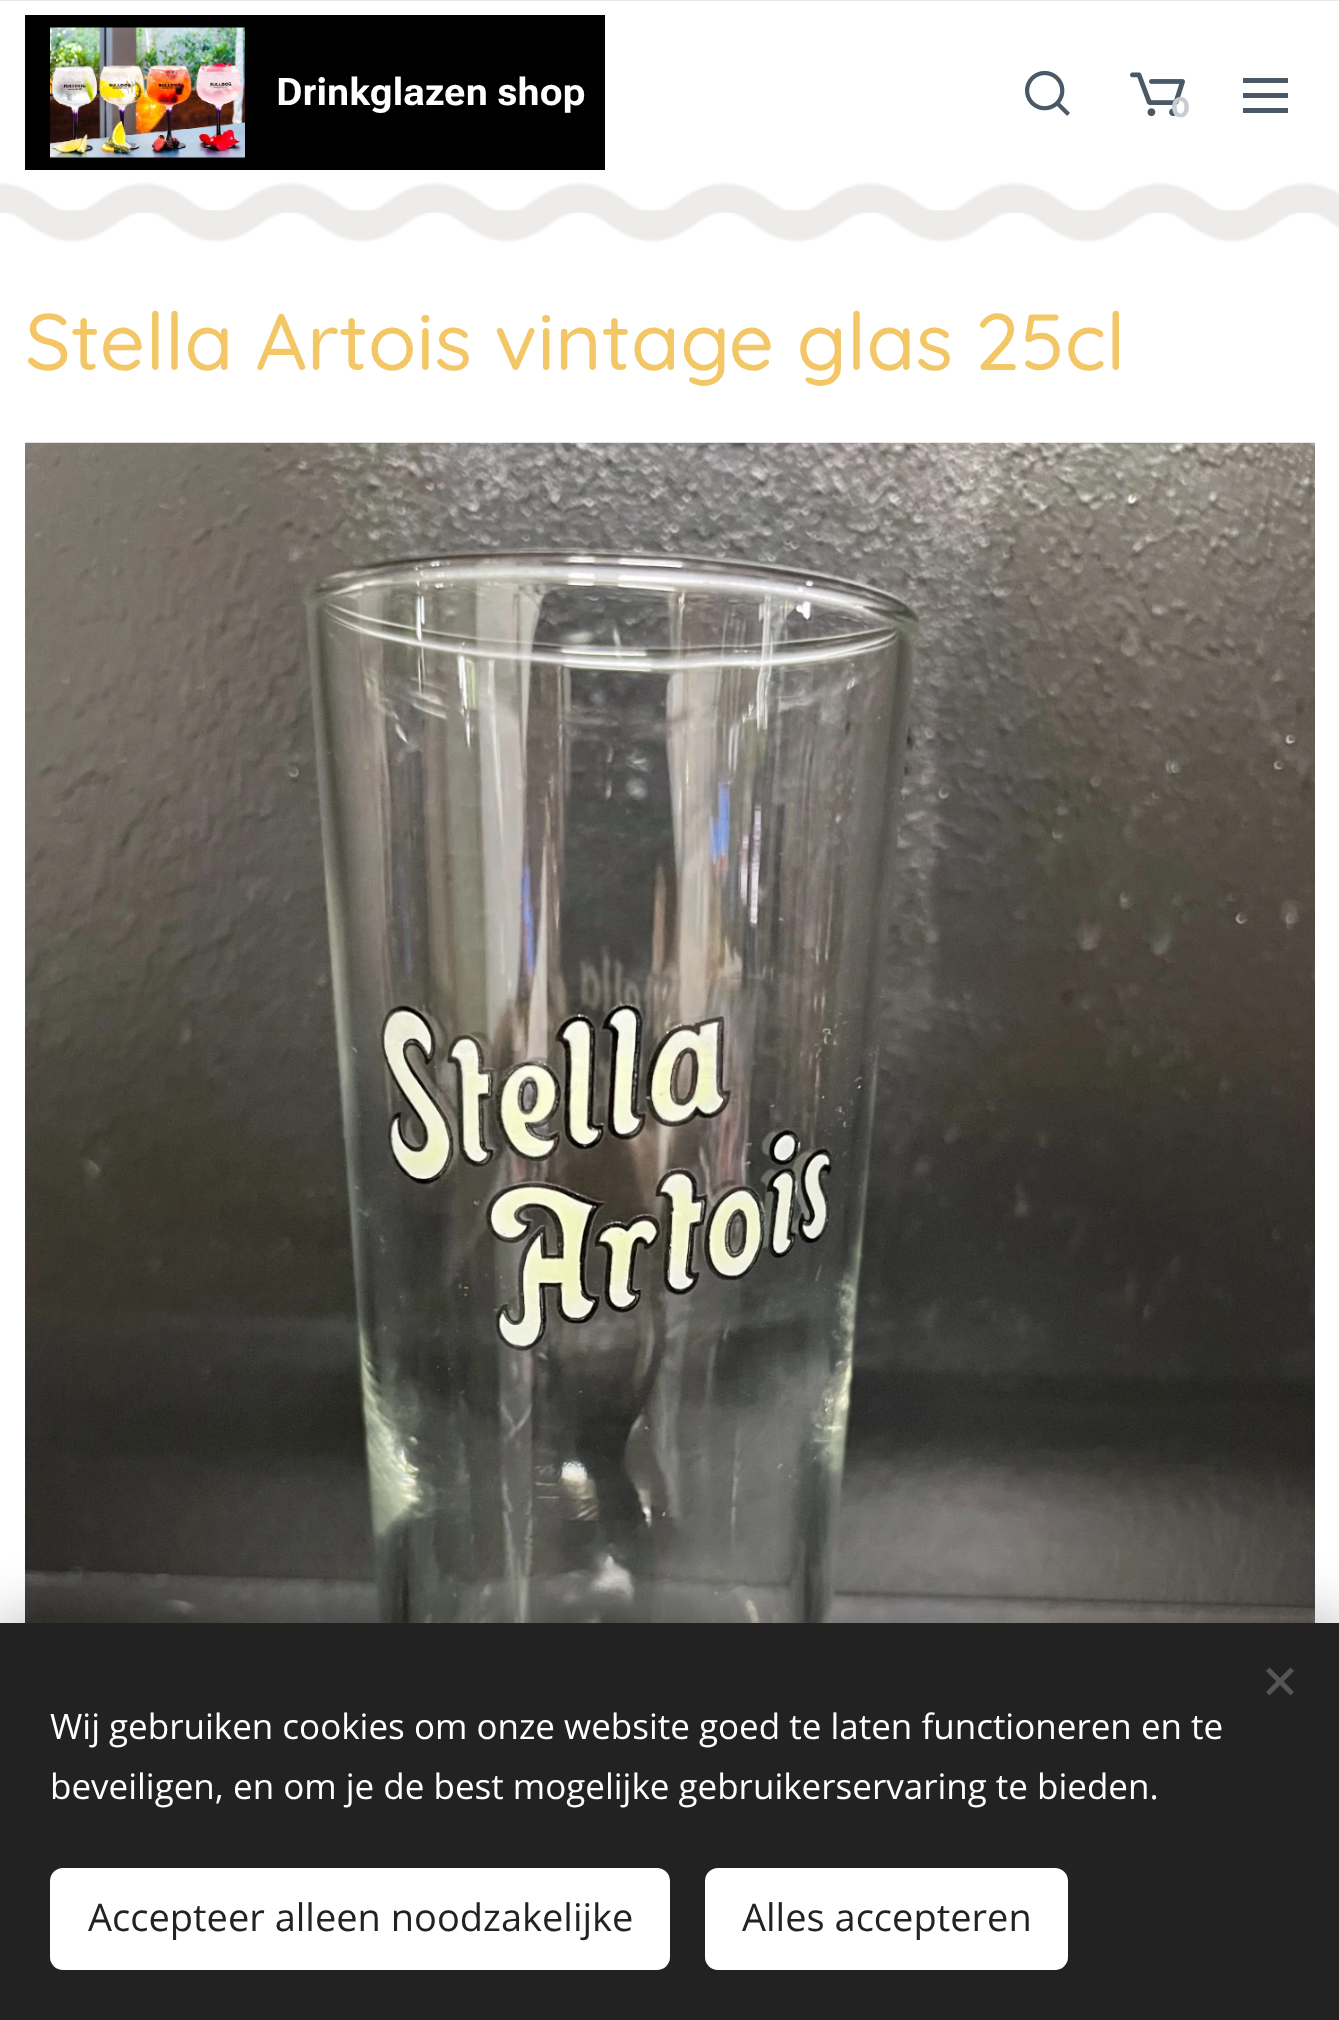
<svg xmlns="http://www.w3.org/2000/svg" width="1339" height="2020">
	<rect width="100%" height="100%" fill="#FFFFFF" />
	<rect x="25" y="15" width="580" height="155" fill="#000000" />
	<image x="50" y="27" width="195" height="131" href="assets/img1.png" />
	<text x="276" y="105" font-family="Roboto Flex" font-size="38" font-weight="700" fill="#FFFFFF">Drinkglazen shop</text>
	<rect x="0" y="0" width="1339" height="1" fill="#E8E8E8" />
	<image x="1025" y="70" width="45" height="46" href="assets/img2.png" />
	<image x="1130" y="72" width="55" height="45" href="assets/img3.png" />
	<text x="1171" y="117" font-family="Montserrat" font-size="28" font-weight="700" fill="#C9CDD2">0</text>
	<rect x="1243" y="93" width="45" height="5" fill="#495968" />
	<rect x="1243" y="78" width="45" height="5" fill="#495968" />
	<rect x="1243" y="108" width="45" height="5" fill="#495968" />
	<image x="0" y="210" width="1339" height="33" href="assets/img5.png" />
	<image x="0" y="182" width="1339" height="31" href="assets/img4.png" />
	<text x="25" y="370" font-family="Quicksand" font-size="80" font-weight="500" fill="#F3C666">Stella Artois vintage glas 25cl</text>
	<image x="25" y="442" width="1290" height="1181" href="assets/img6.png" />
	<rect x="0" y="1623" width="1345" height="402" fill="#000000" fill-opacity="0.33" filter="blur(31px)" />
	<rect x="0" y="1623" width="1339" height="397" fill="#222222" />
	<path d="M1266 1692L1290.5 1667.5L1294 1671L1269.5 1695.5Z" fill="#555555" />
	<path d="M1269.5 1667.5L1294 1692L1290.5 1695.5L1266 1671Z" fill="#555555" />
	<g font-family="Open Sans" font-size="35" fill="#FFFFFF">
		<text x="50" y="1739">Wij gebruiken cookies om onze website goed te laten functioneren en te</text>
		<text x="50" y="1799">beveiligen, en om je de best mogelijke gebruikerservaring te bieden.</text>
	</g>
	<rect x="50" y="1868" width="620" height="102" rx="13" fill="#FFFFFF" />
	<text x="88" y="1931" font-family="Open Sans" font-size="38" fill="#222222">Accepteer alleen noodzakelijke</text>
	<rect x="705" y="1868" width="363" height="102" rx="13" fill="#FFFFFF" />
	<text x="742" y="1931" font-family="Open Sans" font-size="38" fill="#222222">Alles accepteren</text>
</svg>
